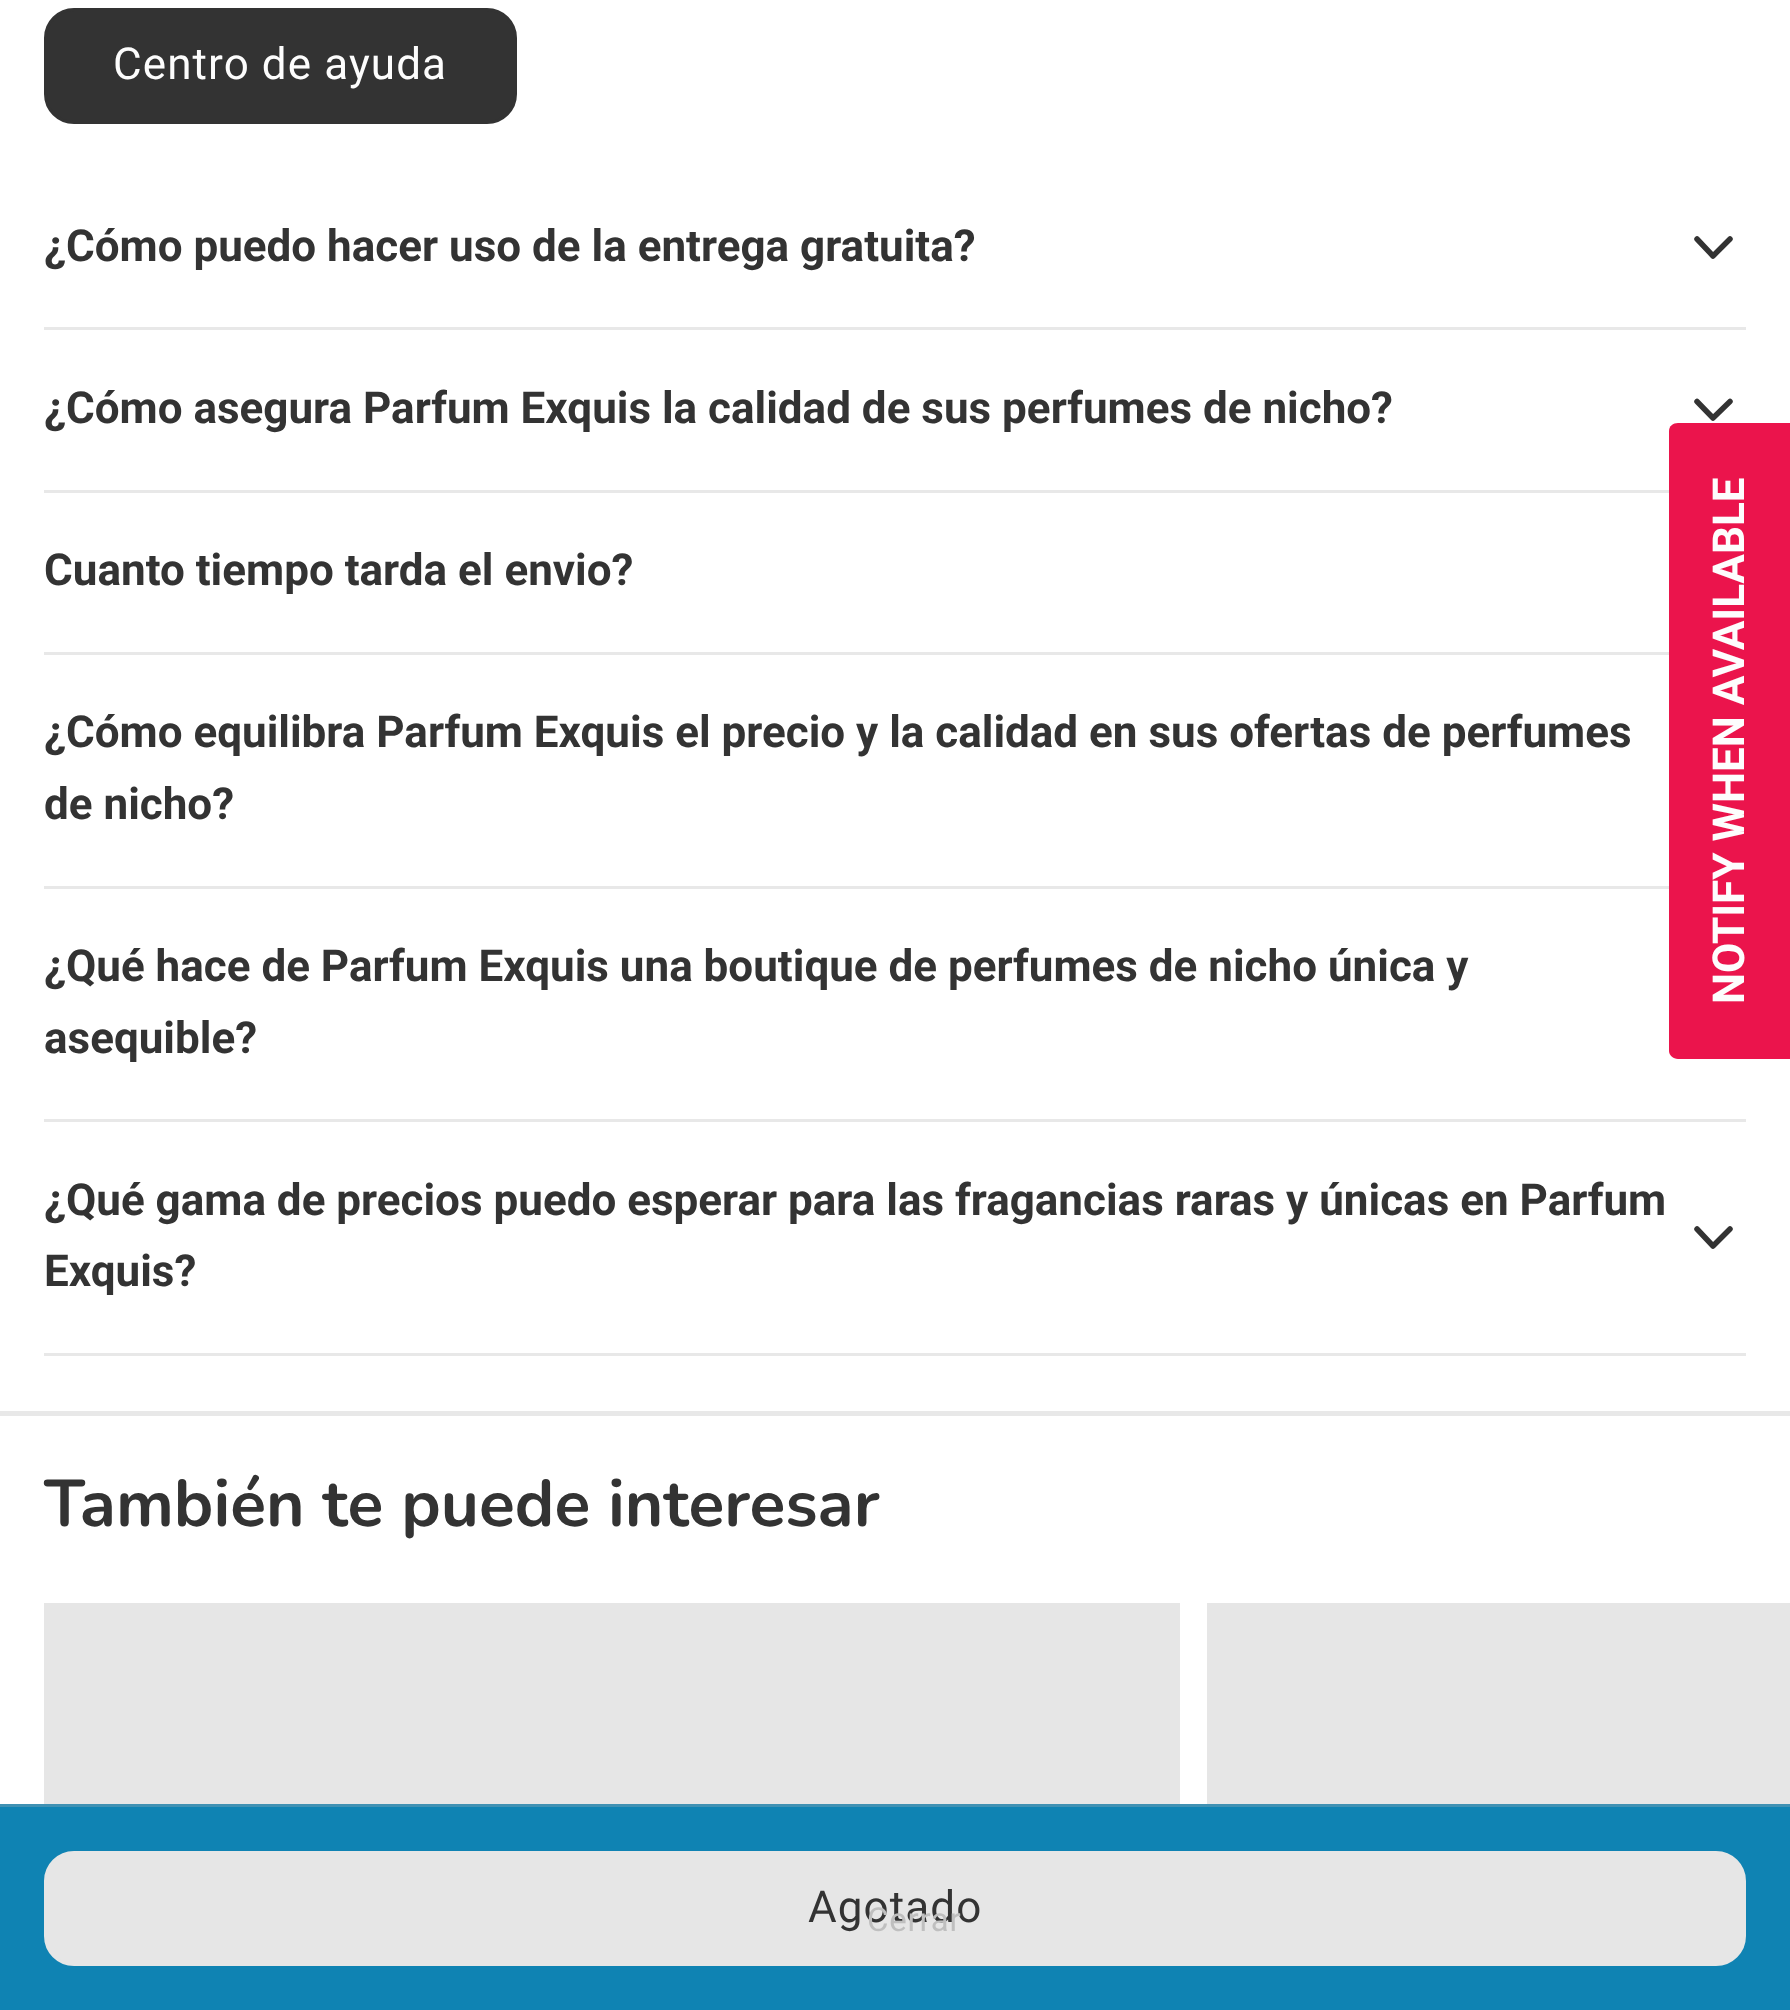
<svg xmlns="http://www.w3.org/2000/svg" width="1790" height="2010">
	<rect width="100%" height="100%" fill="#FFFFFF" />
	<rect x="0" y="1411" width="1790" height="5" fill="#E8E8E8" />
	<rect x="45.5" y="9.5" width="470" height="113" rx="28.5" fill="#333333" stroke="#333333" stroke-width="3" />
	<text x="113" y="79" font-family="Roboto" font-size="44" letter-spacing="1.1" fill="#FDFDFD">Centro de ayuda</text>
	<rect x="44" y="327" width="1702" height="3" fill="#E8E8E8" />
	<text x="44" y="261" font-family="Roboto" font-size="44" font-weight="700" fill="#333333">¿Cómo puedo hacer uso de la entrega gratuita?</text>
	<path d="M1697 239L1713 256L1730 239" fill="none" stroke="#333333" stroke-width="5.5" stroke-linecap="round" stroke-linejoin="round" />
	<rect x="44" y="490" width="1625" height="3" fill="#E8E8E8" />
	<text x="44" y="423" font-family="Roboto" font-size="44" font-weight="700" fill="#333333">¿Cómo asegura Parfum Exquis la calidad de sus perfumes de nicho?</text>
	<path d="M1697 401.5L1713 418L1730 401.5" fill="none" stroke="#333333" stroke-width="5.5" stroke-linecap="round" stroke-linejoin="round" />
	<rect x="44" y="652" width="1625" height="3" fill="#E8E8E8" />
	<text x="44" y="585" font-family="Roboto" font-size="44" font-weight="700" fill="#333333">Cuanto tiempo tarda el envio?</text>
	<rect x="44" y="886" width="1625" height="3" fill="#E8E8E8" />
	<g font-family="Roboto" font-size="44" font-weight="700" fill="#333333">
		<text x="44" y="747">¿Cómo equilibra Parfum Exquis el precio y la calidad en sus ofertas de perfumes</text>
		<text x="44" y="819">de nicho?</text>
	</g>
	<rect x="44" y="1119" width="1702" height="3" fill="#E8E8E8" />
	<g font-family="Roboto" font-size="44" font-weight="700" fill="#333333">
		<text x="44" y="981">¿Qué hace de Parfum Exquis una boutique de perfumes de nicho única y</text>
		<text x="44" y="1053">asequible?</text>
	</g>
	<rect x="44" y="1353" width="1702" height="3" fill="#E8E8E8" />
	<g font-family="Roboto" font-size="44" font-weight="700" fill="#333333">
		<text x="44" y="1215">¿Qué gama de precios puedo esperar para las fragancias raras y únicas en Parfum</text>
		<text x="44" y="1286">Exquis?</text>
	</g>
	<path d="M1697 1229L1713 1246L1730 1229" fill="none" stroke="#333333" stroke-width="5.5" stroke-linecap="round" stroke-linejoin="round" />
	<text x="44" y="1526" font-family="Nunito" font-size="66" font-weight="700" fill="#333333">También te puede interesar</text>
	<rect x="44" y="1603" width="1136" height="201" fill="#E6E6E6" />
	<rect x="1207" y="1603" width="583" height="201" fill="#E6E6E6" />
	<rect x="0" y="1807" width="1790" height="203" fill="#0F83B3" />
	<rect x="0" y="1804" width="1790" height="3" fill="#4091B3" />
	<rect x="45.5" y="1852.5" width="1699" height="112" rx="28.5" fill="#E6E6E6" stroke="#E6E6E6" stroke-width="3" />
	<text x="808" y="1922" font-family="Roboto" font-size="44" letter-spacing="1.1" fill="#333333">Agotado</text>
	<text x="867" y="1931" font-family="Roboto" font-size="33" letter-spacing="0.75" fill="#BFBFBF">Cerrar</text>
	<path d="M1669 1051V431C1669 426 1673 423 1678 423H1790V1059H1678C1673 1059 1669 1055 1669 1051Z" fill="#EB144C" />
	<text x="1744" y="1004" transform="rotate(-90 1744 1004)" font-family="Roboto" font-size="44" font-weight="700" fill="#FDFDFD">NOTIFY WHEN AVAILABLE</text>
</svg>
